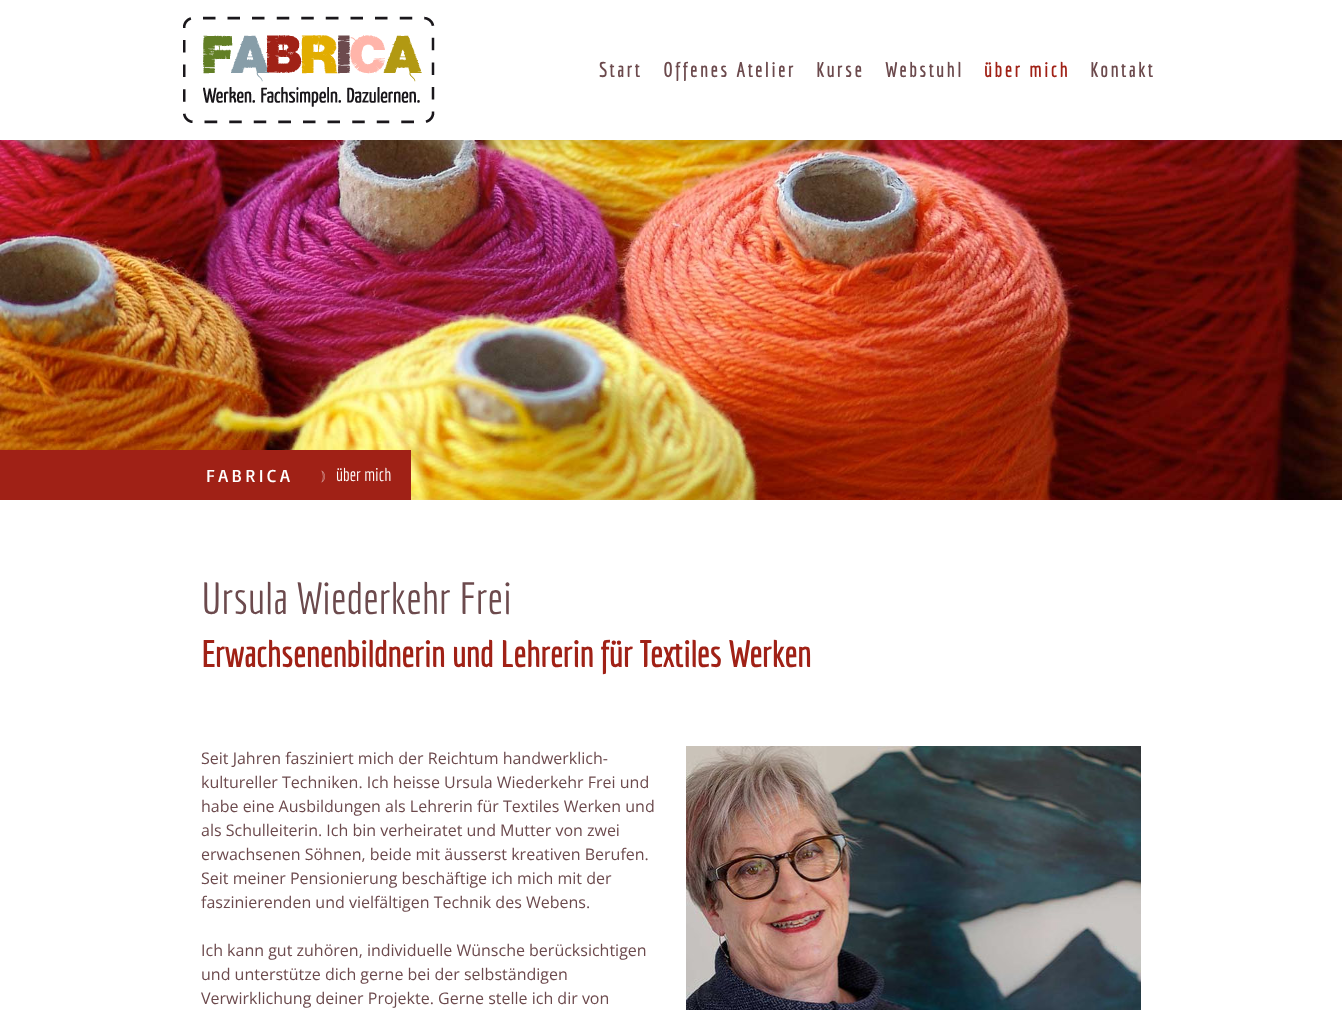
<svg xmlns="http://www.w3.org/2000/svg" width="1342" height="1010">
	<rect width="100%" height="100%" fill="#FFFFFF" />
	<image x="0" y="140" width="1342" height="360" href="assets/img2.png" />
	<rect x="0" y="0" width="1342" height="140" fill="#000000" fill-opacity="0.2" filter="blur(15px)" />
	<rect x="0" y="0" width="1342" height="140" fill="#FFFFFF" />
	<image x="183" y="16" width="252" height="108" href="assets/img1.png" />
	<g font-family="Economica" font-size="20" font-weight="700" letter-spacing="2.75" fill="#6C4A4D">
		<text x="599" y="77">Start</text>
		<text x="663" y="77">Offenes Atelier</text>
		<text x="816" y="77">Kurse</text>
		<text x="885" y="77">Webstuhl</text>
	</g>
	<text x="984" y="77" font-family="Economica" font-size="20" font-weight="700" letter-spacing="2.75" fill="#A02116">über mich</text>
	<text x="1090" y="77" font-family="Economica" font-size="20" font-weight="700" letter-spacing="2.75" fill="#6C4A4D">Kontakt</text>
	<rect x="0" y="450" width="411" height="50" fill="#A02116" />
	<text x="206" y="482" font-family="Basic" font-size="18" letter-spacing="3.5" fill="#FFFFFF">FABRICA</text>
	<text x="321" y="480" font-family="FreeSerif" font-size="14" fill="#D0908B">⦆</text>
	<text x="336" y="481" font-family="Economica" font-size="18" fill="#FFFFFF">über mich</text>
	<text x="201" y="614" font-family="Economica" font-size="44" fill="#6C4A4D">Ursula Wiederkehr Frei</text>
	<text x="201" y="667" font-family="Economica" font-size="36" font-weight="700" fill="#A02116">Erwachsenenbildnerin und Lehrerin für Textiles Werken</text>
	<g font-family="Open Sans" font-size="16" fill="#6C4A4D">
		<text x="201" y="764">Seit Jahren fasziniert mich der Reichtum handwerklich-</text>
		<text x="201" y="788">kultureller Techniken. Ich heisse Ursula Wiederkehr Frei und</text>
		<text x="201" y="812">habe eine Ausbildungen als Lehrerin für Textiles Werken und</text>
		<text x="201" y="836">als Schulleiterin. Ich bin verheiratet und Mutter von zwei</text>
		<text x="201" y="860">erwachsenen Söhnen, beide mit äusserst kreativen Berufen.</text>
		<text x="201" y="884">Seit meiner Pensionierung beschäftige ich mich mit der</text>
		<text x="201" y="908">faszinierenden und vielfältigen Technik des Webens.</text>
		<text x="201" y="956">Ich kann gut zuhören, individuelle Wünsche berücksichtigen</text>
		<text x="201" y="980">und unterstütze dich gerne bei der selbständigen</text>
		<text x="201" y="1004">Verwirklichung deiner Projekte. Gerne stelle ich dir von</text>
	</g>
	<image x="686" y="746" width="455" height="264" href="assets/img3.png" />
</svg>
